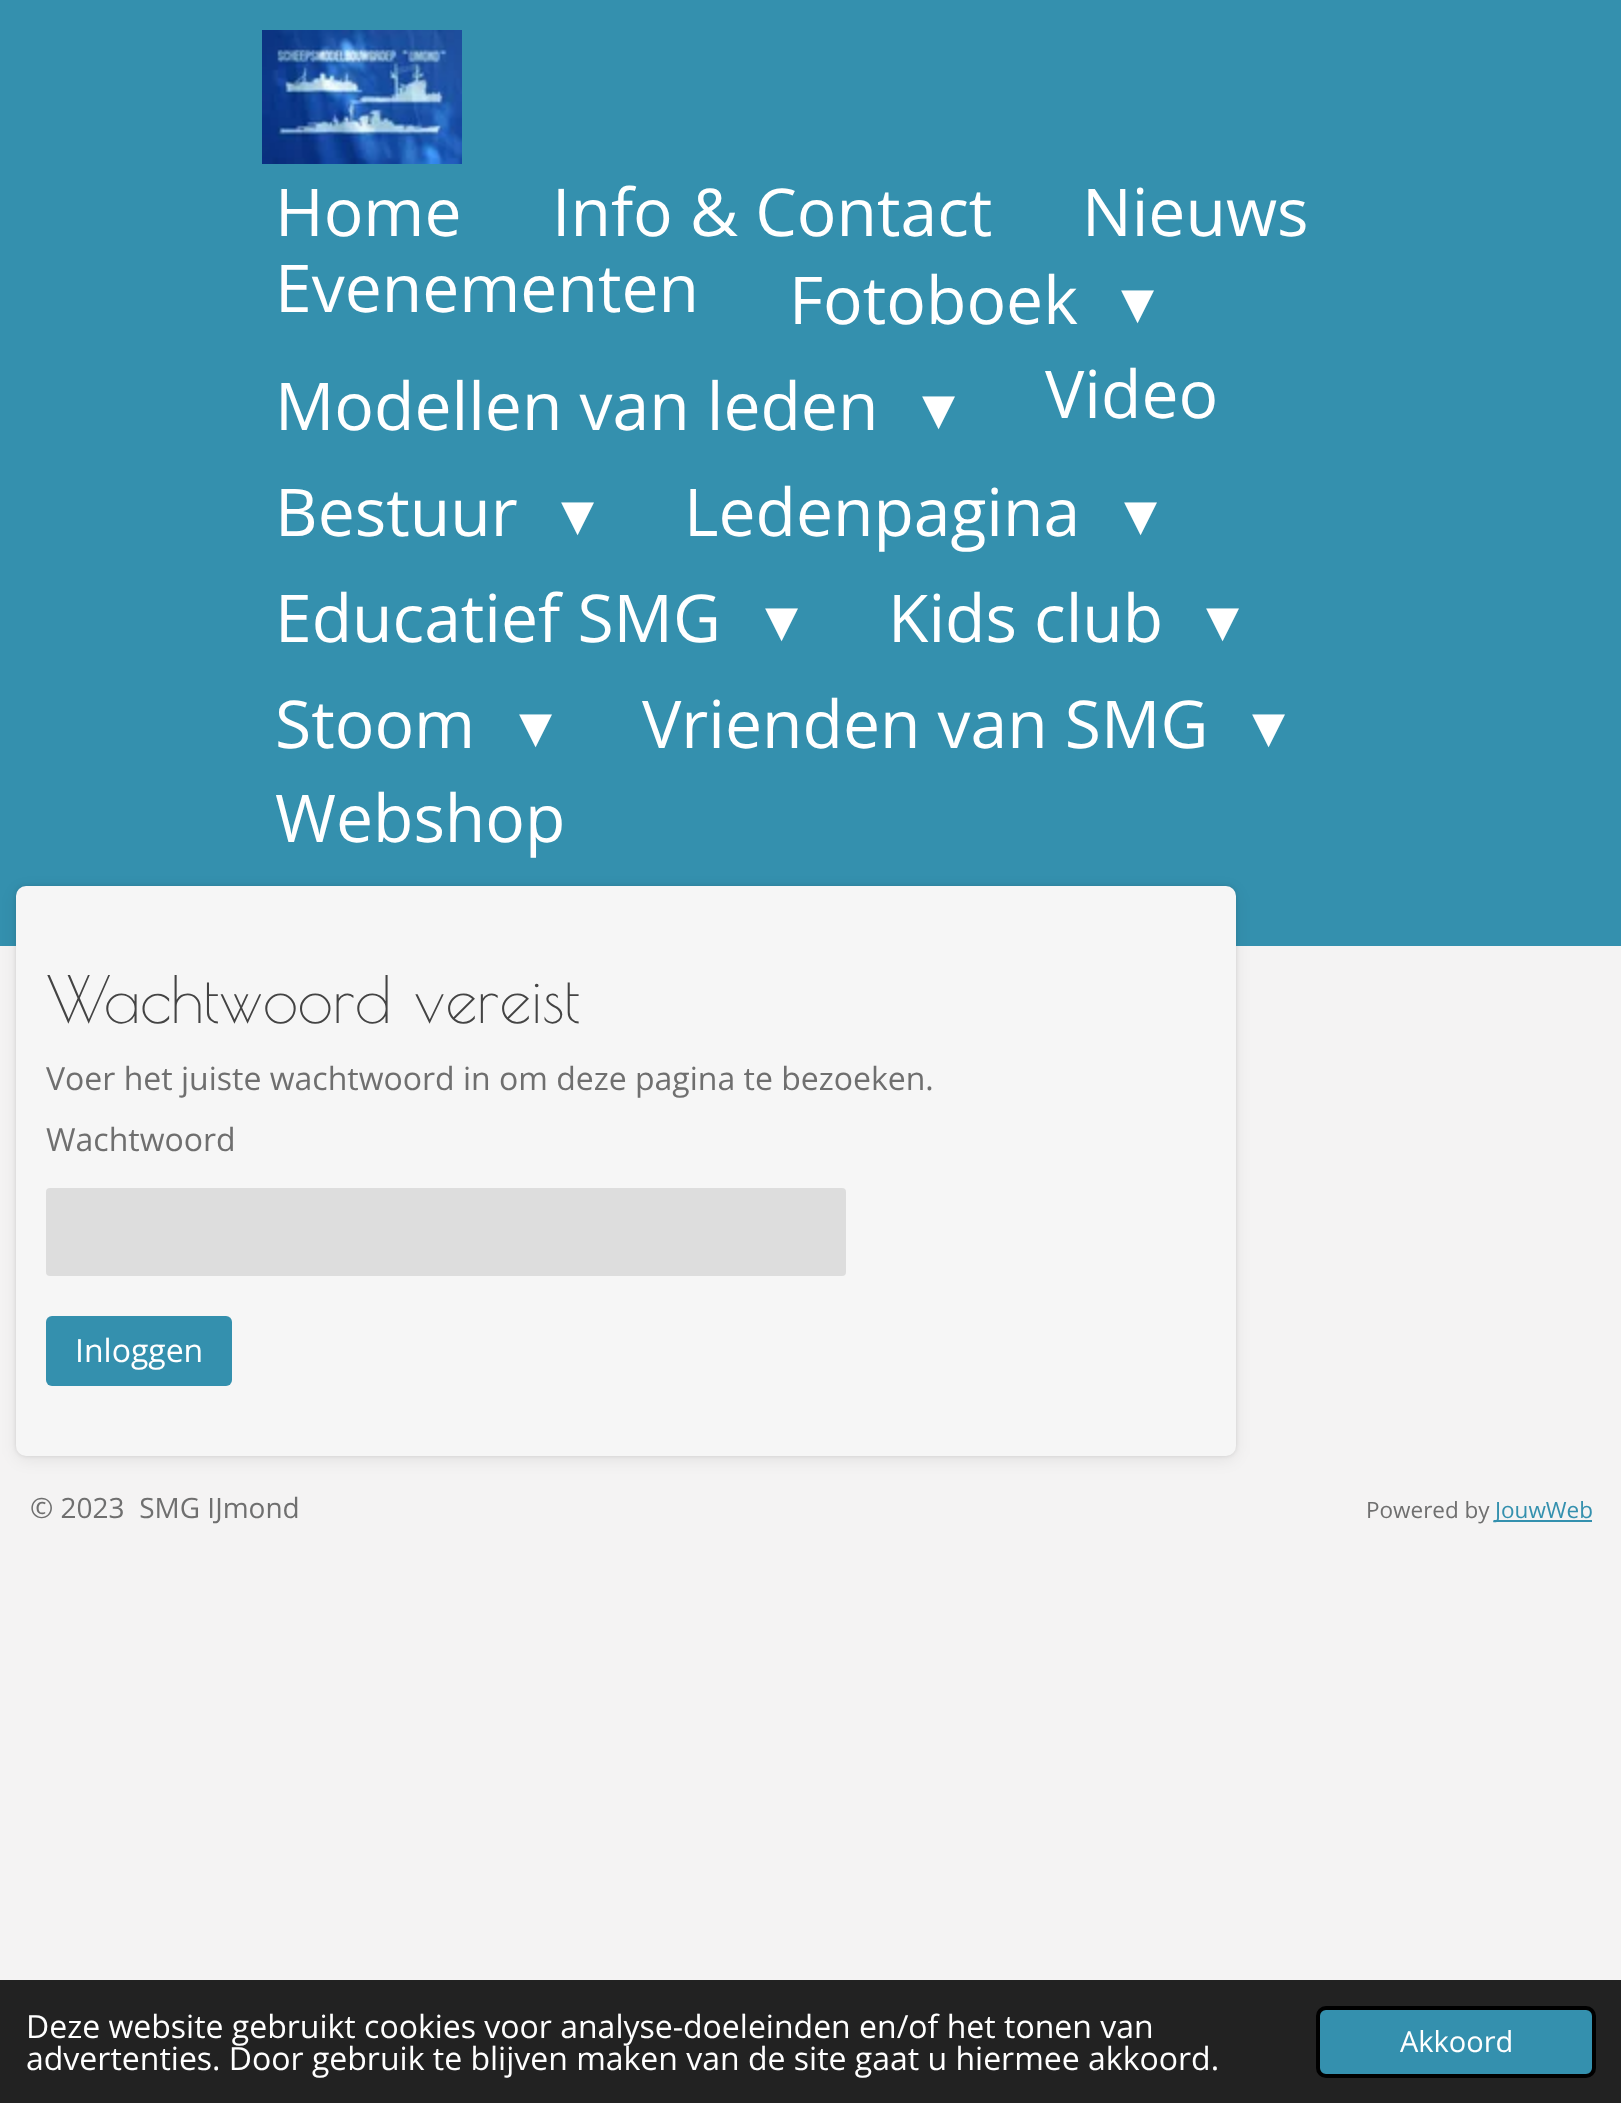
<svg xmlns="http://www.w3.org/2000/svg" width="1621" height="2103">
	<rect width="100%" height="100%" fill="#F4F3F3" />
	<rect x="0" y="0" width="1621" height="946" fill="#3490AE" />
	<image x="262" y="30" width="200" height="134" href="assets/img1.png" />
	<g font-family="Open Sans" font-size="66" fill="#FFFFFF">
		<text x="275" y="236">Home</text>
		<text x="552" y="236">Info &amp; Contact</text>
		<text x="1082" y="236">Nieuws</text>
		<text x="275" y="312">Evenementen</text>
		<text x="789" y="324">Fotoboek</text>
	</g>
	<text x="1121" y="324" font-family="DejaVu Sans" font-size="66" fill="#FFFFFF">▾</text>
	<text x="275" y="430" font-family="Open Sans" font-size="66" fill="#FFFFFF">Modellen van leden</text>
	<text x="922" y="430" font-family="DejaVu Sans" font-size="66" fill="#FFFFFF">▾</text>
	<g font-family="Open Sans" font-size="66" fill="#FFFFFF">
		<text x="1045" y="418">Video</text>
		<text x="275" y="536">Bestuur</text>
	</g>
	<text x="561" y="536" font-family="DejaVu Sans" font-size="66" fill="#FFFFFF">▾</text>
	<text x="684" y="536" font-family="Open Sans" font-size="66" fill="#FFFFFF">Ledenpagina</text>
	<text x="1124" y="536" font-family="DejaVu Sans" font-size="66" fill="#FFFFFF">▾</text>
	<text x="275" y="642" font-family="Open Sans" font-size="66" fill="#FFFFFF">Educatief SMG</text>
	<text x="765" y="642" font-family="DejaVu Sans" font-size="66" fill="#FFFFFF">▾</text>
	<text x="888" y="642" font-family="Open Sans" font-size="66" fill="#FFFFFF">Kids club</text>
	<text x="1206" y="642" font-family="DejaVu Sans" font-size="66" fill="#FFFFFF">▾</text>
	<text x="275" y="748" font-family="Open Sans" font-size="66" fill="#FFFFFF">Stoom</text>
	<text x="519" y="748" font-family="DejaVu Sans" font-size="66" fill="#FFFFFF">▾</text>
	<text x="642" y="748" font-family="Open Sans" font-size="66" fill="#FFFFFF">Vrienden van SMG</text>
	<text x="1252" y="748" font-family="DejaVu Sans" font-size="66" fill="#FFFFFF">▾</text>
	<text x="275" y="842" font-family="Open Sans" font-size="66" fill="#FFFFFF">Webshop</text>
	<rect x="16" y="886" width="1220" height="570" rx="10" fill="#000000" fill-opacity="0.1" filter="blur(2px)" />
	<rect x="16" y="890" width="1220" height="570" rx="10" fill="#000000" fill-opacity="0.07" filter="blur(8px)" />
	<rect x="16" y="886" width="1220" height="570" rx="10" fill="#F6F6F6" />
	<text x="46" y="1023" font-family="Poiret One" font-size="64" fill="#444444">Wachtwoord vereist</text>
	<g font-family="Open Sans" font-size="32" fill="#6F6F6F">
		<text x="46" y="1090">Voer het juiste wachtwoord in om deze pagina te bezoeken.</text>
		<text x="46" y="1151">Wachtwoord</text>
	</g>
	<rect x="46" y="1188" width="800" height="88" rx="4" fill="#DDDDDD" />
	<rect x="46" y="1316" width="186" height="70" rx="6" fill="#3490AE" />
	<text x="75" y="1362" font-family="Open Sans" font-size="32" fill="#FFFFFF">Inloggen</text>
	<text x="30" y="1518" font-family="Open Sans" font-size="28" fill="#6F6F6F" xml:space="preserve">© 2023  SMG IJmond</text>
	<text x="1366" y="1518" font-family="Open Sans" font-size="22.5" fill="#6F6F6F">Powered by</text>
	<rect x="1494" y="1520" width="98" height="2" fill="#3490AE" />
	<text x="1495" y="1518" font-family="Open Sans" font-size="22.5" fill="#3490AE">JouwWeb</text>
	<rect x="0" y="1980" width="1621" height="123" fill="#222222" />
	<g font-family="Open Sans" font-size="32" fill="#FFFFFF">
		<text x="26" y="2038">Deze website gebruikt cookies voor analyse-doeleinden en/of het tonen van</text>
		<text x="26" y="2070">advertenties. Door gebruik te blijven maken van de site gaat u hiermee akkoord.</text>
	</g>
	<rect x="1318" y="2008" width="276" height="68" rx="8" fill="#3490AE" stroke="#000000" stroke-width="4" />
	<text x="1400" y="2052" font-family="Open Sans" font-size="29" fill="#FFFFFF">Akkoord</text>
</svg>
